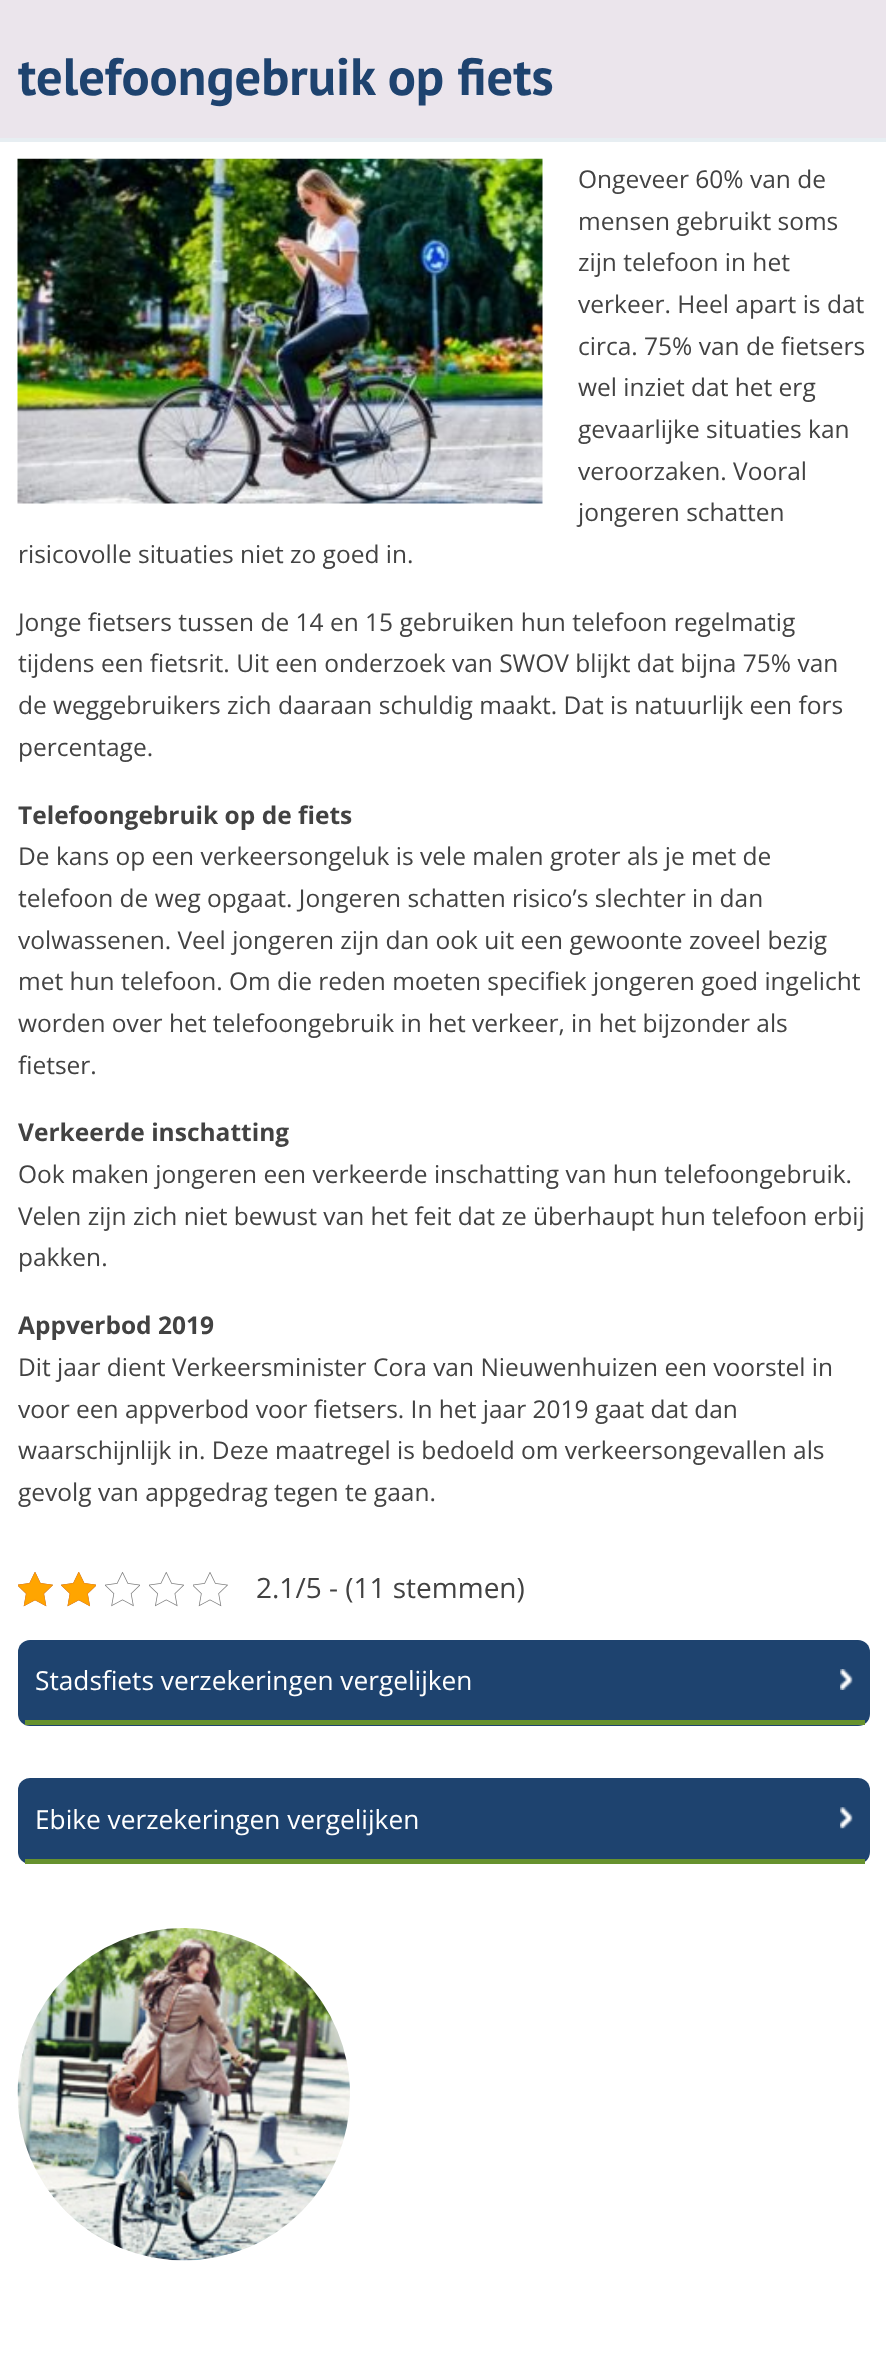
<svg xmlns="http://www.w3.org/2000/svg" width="886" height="2377">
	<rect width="100%" height="100%" fill="#FFFFFF" />
	<rect x="0" y="0" width="886" height="138" fill="#EBE5EC" />
	<rect x="0" y="138" width="886" height="4" fill="#E7EEF2" />
	<text x="18" y="95" font-family="PT Sans" font-size="52.5" font-weight="700" fill="#1E436F">telefoongebruik op fiets</text>
	<image x="17" y="158" width="526" height="346" href="assets/img1.png" />
	<g font-family="Open Sans" font-size="24.5" fill="#424242">
		<text x="578" y="188">Ongeveer 60% van de</text>
		<text x="578" y="230">mensen gebruikt soms</text>
		<text x="578" y="271">zijn telefoon in het</text>
		<text x="578" y="313">verkeer. Heel apart is dat</text>
		<text x="578" y="355">circa. 75% van de fietsers</text>
		<text x="578" y="396">wel inziet dat het erg</text>
		<text x="578" y="438">gevaarlijke situaties kan</text>
		<text x="578" y="480">veroorzaken. Vooral</text>
		<text x="578" y="521">jongeren schatten</text>
		<text x="18" y="563">risicovolle situaties niet zo goed in.</text>
		<text x="18" y="631">Jonge fietsers tussen de 14 en 15 gebruiken hun telefoon regelmatig</text>
		<text x="18" y="672">tijdens een fietsrit. Uit een onderzoek van SWOV blijkt dat bijna 75% van</text>
		<text x="18" y="714">de weggebruikers zich daaraan schuldig maakt. Dat is natuurlijk een fors</text>
		<text x="18" y="756">percentage.</text>
	</g>
	<text x="18" y="824" font-family="Open Sans" font-size="24.5" font-weight="700" fill="#424242">Telefoongebruik op de fiets</text>
	<g font-family="Open Sans" font-size="24.5" fill="#424242">
		<text x="18" y="865">De kans op een verkeersongeluk is vele malen groter als je met de</text>
		<text x="18" y="907">telefoon de weg opgaat. Jongeren schatten risico’s slechter in dan</text>
		<text x="18" y="949">volwassenen. Veel jongeren zijn dan ook uit een gewoonte zoveel bezig</text>
		<text x="18" y="990">met hun telefoon. Om die reden moeten specifiek jongeren goed ingelicht</text>
		<text x="18" y="1032">worden over het telefoongebruik in het verkeer, in het bijzonder als</text>
		<text x="18" y="1074">fietser.</text>
	</g>
	<text x="18" y="1141" font-family="Open Sans" font-size="24.5" font-weight="700" fill="#424242">Verkeerde inschatting</text>
	<g font-family="Open Sans" font-size="24.5" fill="#424242">
		<text x="18" y="1183">Ook maken jongeren een verkeerde inschatting van hun telefoongebruik.</text>
		<text x="18" y="1225">Velen zijn zich niet bewust van het feit dat ze überhaupt hun telefoon erbij</text>
		<text x="18" y="1266">pakken.</text>
	</g>
	<text x="18" y="1334" font-family="Open Sans" font-size="24.5" font-weight="700" fill="#424242">Appverbod 2019</text>
	<g font-family="Open Sans" font-size="24.5" fill="#424242">
		<text x="18" y="1376">Dit jaar dient Verkeersminister Cora van Nieuwenhuizen een voorstel in</text>
		<text x="18" y="1418">voor een appverbod voor fietsers. In het jaar 2019 gaat dat dan</text>
		<text x="18" y="1459">waarschijnlijk in. Deze maatregel is bedoeld om verkeersongevallen als</text>
		<text x="18" y="1501">gevolg van appgedrag tegen te gaan.</text>
	</g>
	<image x="18" y="1572" width="35" height="35" href="assets/img2.png" />
	<image x="61" y="1572" width="35" height="35" href="assets/img3.png" />
	<image x="105" y="1572" width="35" height="35" href="assets/img4.png" />
	<image x="149" y="1572" width="35" height="35" href="assets/img5.png" />
	<image x="193" y="1572" width="35" height="35" href="assets/img2.png" />
	<image x="18" y="1572" width="35" height="35" href="assets/img6.png" />
	<image x="61" y="1572" width="35" height="35" href="assets/img7.png" />
	<text x="256" y="1598" font-family="Open Sans" font-size="28" fill="#424242">2.1/5 - (11 stemmen)</text>
	<rect x="18" y="1640" width="852" height="86" rx="12" fill="#1E436F" />
	<rect x="25" y="1720" width="840" height="5" fill="#67922E" />
	<text x="35" y="1690" font-family="Open Sans" font-size="26.25" fill="#FFFFFF">Stadsfiets verzekeringen vergelijken</text>
	<image x="840" y="1669" width="13" height="21" href="assets/img8.png" />
	<rect x="18" y="1778" width="852" height="86" rx="12" fill="#1E436F" />
	<rect x="25" y="1859" width="840" height="5" fill="#67922E" />
	<text x="35" y="1829" font-family="Open Sans" font-size="26.25" fill="#FFFFFF">Ebike verzekeringen vergelijken</text>
	<image x="840" y="1807" width="13" height="22" href="assets/img9.png" />
	<image x="17" y="1928" width="333" height="333" href="assets/img10.png" />
</svg>
